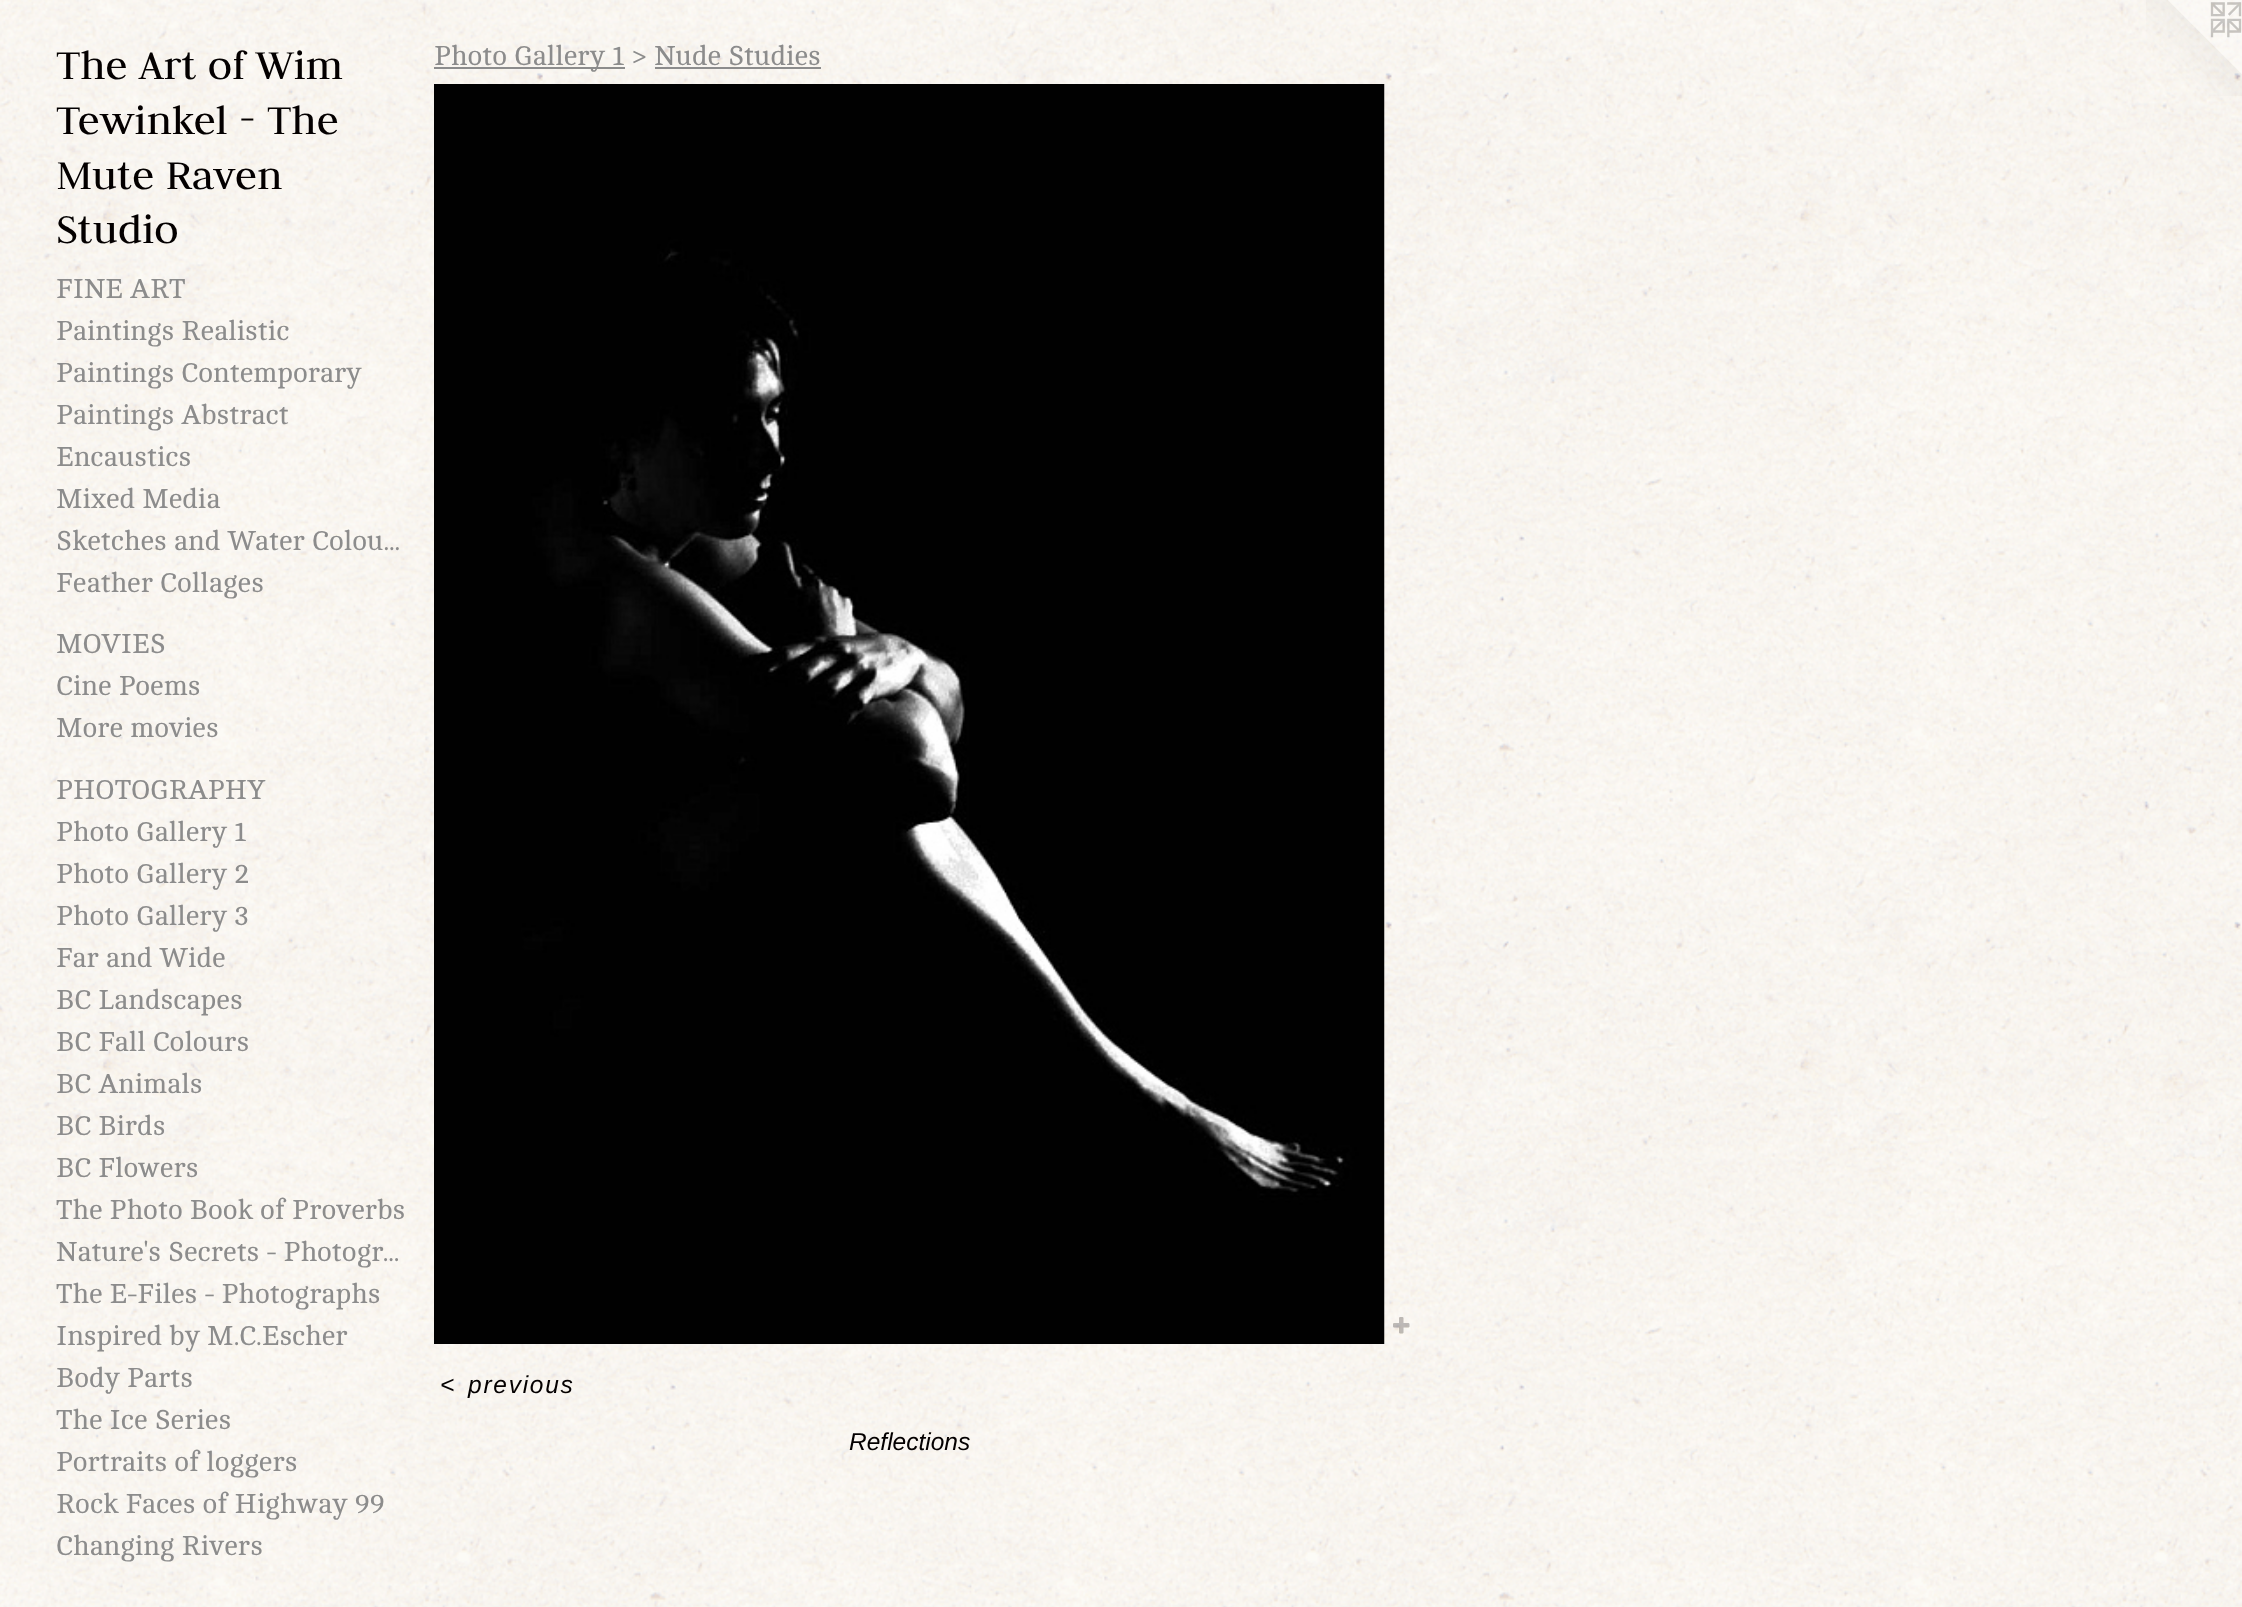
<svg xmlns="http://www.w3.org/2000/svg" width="2242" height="1607">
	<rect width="100%" height="100%" fill="#FFFFFF" />
	<image x="0" y="0" width="2242" height="1607" href="assets/img1.png" />
	<g font-family="Judson" font-size="45.5" fill="#040000">
		<text x="56" y="79">The Art of Wim</text>
		<text x="56" y="134">Tewinkel - The</text>
		<text x="56" y="189">Mute Raven</text>
		<text x="56" y="243">Studio</text>
	</g>
	<g font-family="Cambo" font-size="28" fill="#8C8C8C">
		<text x="56" y="298">FINE ART</text>
		<text x="56" y="340">Paintings Realistic</text>
		<text x="56" y="382">Paintings Contemporary</text>
		<text x="56" y="424">Paintings Abstract</text>
		<text x="56" y="466">Encaustics</text>
		<text x="56" y="508">Mixed Media</text>
		<text x="56" y="550">Sketches and Water Colou...</text>
		<text x="56" y="592">Feather Collages</text>
		<text x="56" y="653">MOVIES</text>
		<text x="56" y="695">Cine Poems</text>
		<text x="56" y="737">More movies</text>
		<text x="56" y="799">PHOTOGRAPHY</text>
		<text x="56" y="841">Photo Gallery 1</text>
		<text x="56" y="883">Photo Gallery 2</text>
		<text x="56" y="925">Photo Gallery 3</text>
		<text x="56" y="967">Far and Wide</text>
		<text x="56" y="1009">BC Landscapes</text>
		<text x="56" y="1051">BC Fall Colours</text>
		<text x="56" y="1093">BC Animals</text>
		<text x="56" y="1135">BC Birds</text>
		<text x="56" y="1177">BC Flowers</text>
		<text x="56" y="1219">The Photo Book of Proverbs</text>
		<text x="56" y="1261">Nature's Secrets - Photogr...</text>
		<text x="56" y="1303">The E-Files - Photographs</text>
		<text x="56" y="1345">Inspired by M.C.Escher</text>
		<text x="56" y="1387">Body Parts</text>
		<text x="56" y="1429">The Ice Series</text>
		<text x="56" y="1471">Portraits of loggers</text>
		<text x="56" y="1513">Rock Faces of Highway 99</text>
		<text x="56" y="1555">Changing Rivers</text>
	</g>
	<rect x="434" y="67" width="191" height="2" fill="#8C8C8C" />
	<text x="434" y="65" font-family="Cambo" font-size="28" fill="#8C8C8C">Photo Gallery 1 &gt; Nude Studies</text>
	<rect x="655" y="67" width="166" height="2" fill="#8C8C8C" />
	<image x="434" y="84" width="951" height="1260" href="assets/img2.png" />
	<image x="1393" y="1317" width="17" height="17" href="assets/img3.png" />
	<g font-family="Liberation Sans" font-size="24.5" font-style="italic" letter-spacing="1.75" fill="#040000">
		<text x="440" y="1393">&lt;</text>
		<text x="468" y="1393">previous</text>
	</g>
	<text x="849" y="1450" font-family="Liberation Sans" font-size="24.5" font-style="italic" fill="#040000">Reflections</text>
	<image x="2146" y="0" width="96" height="96" href="assets/img4.png" />
</svg>
